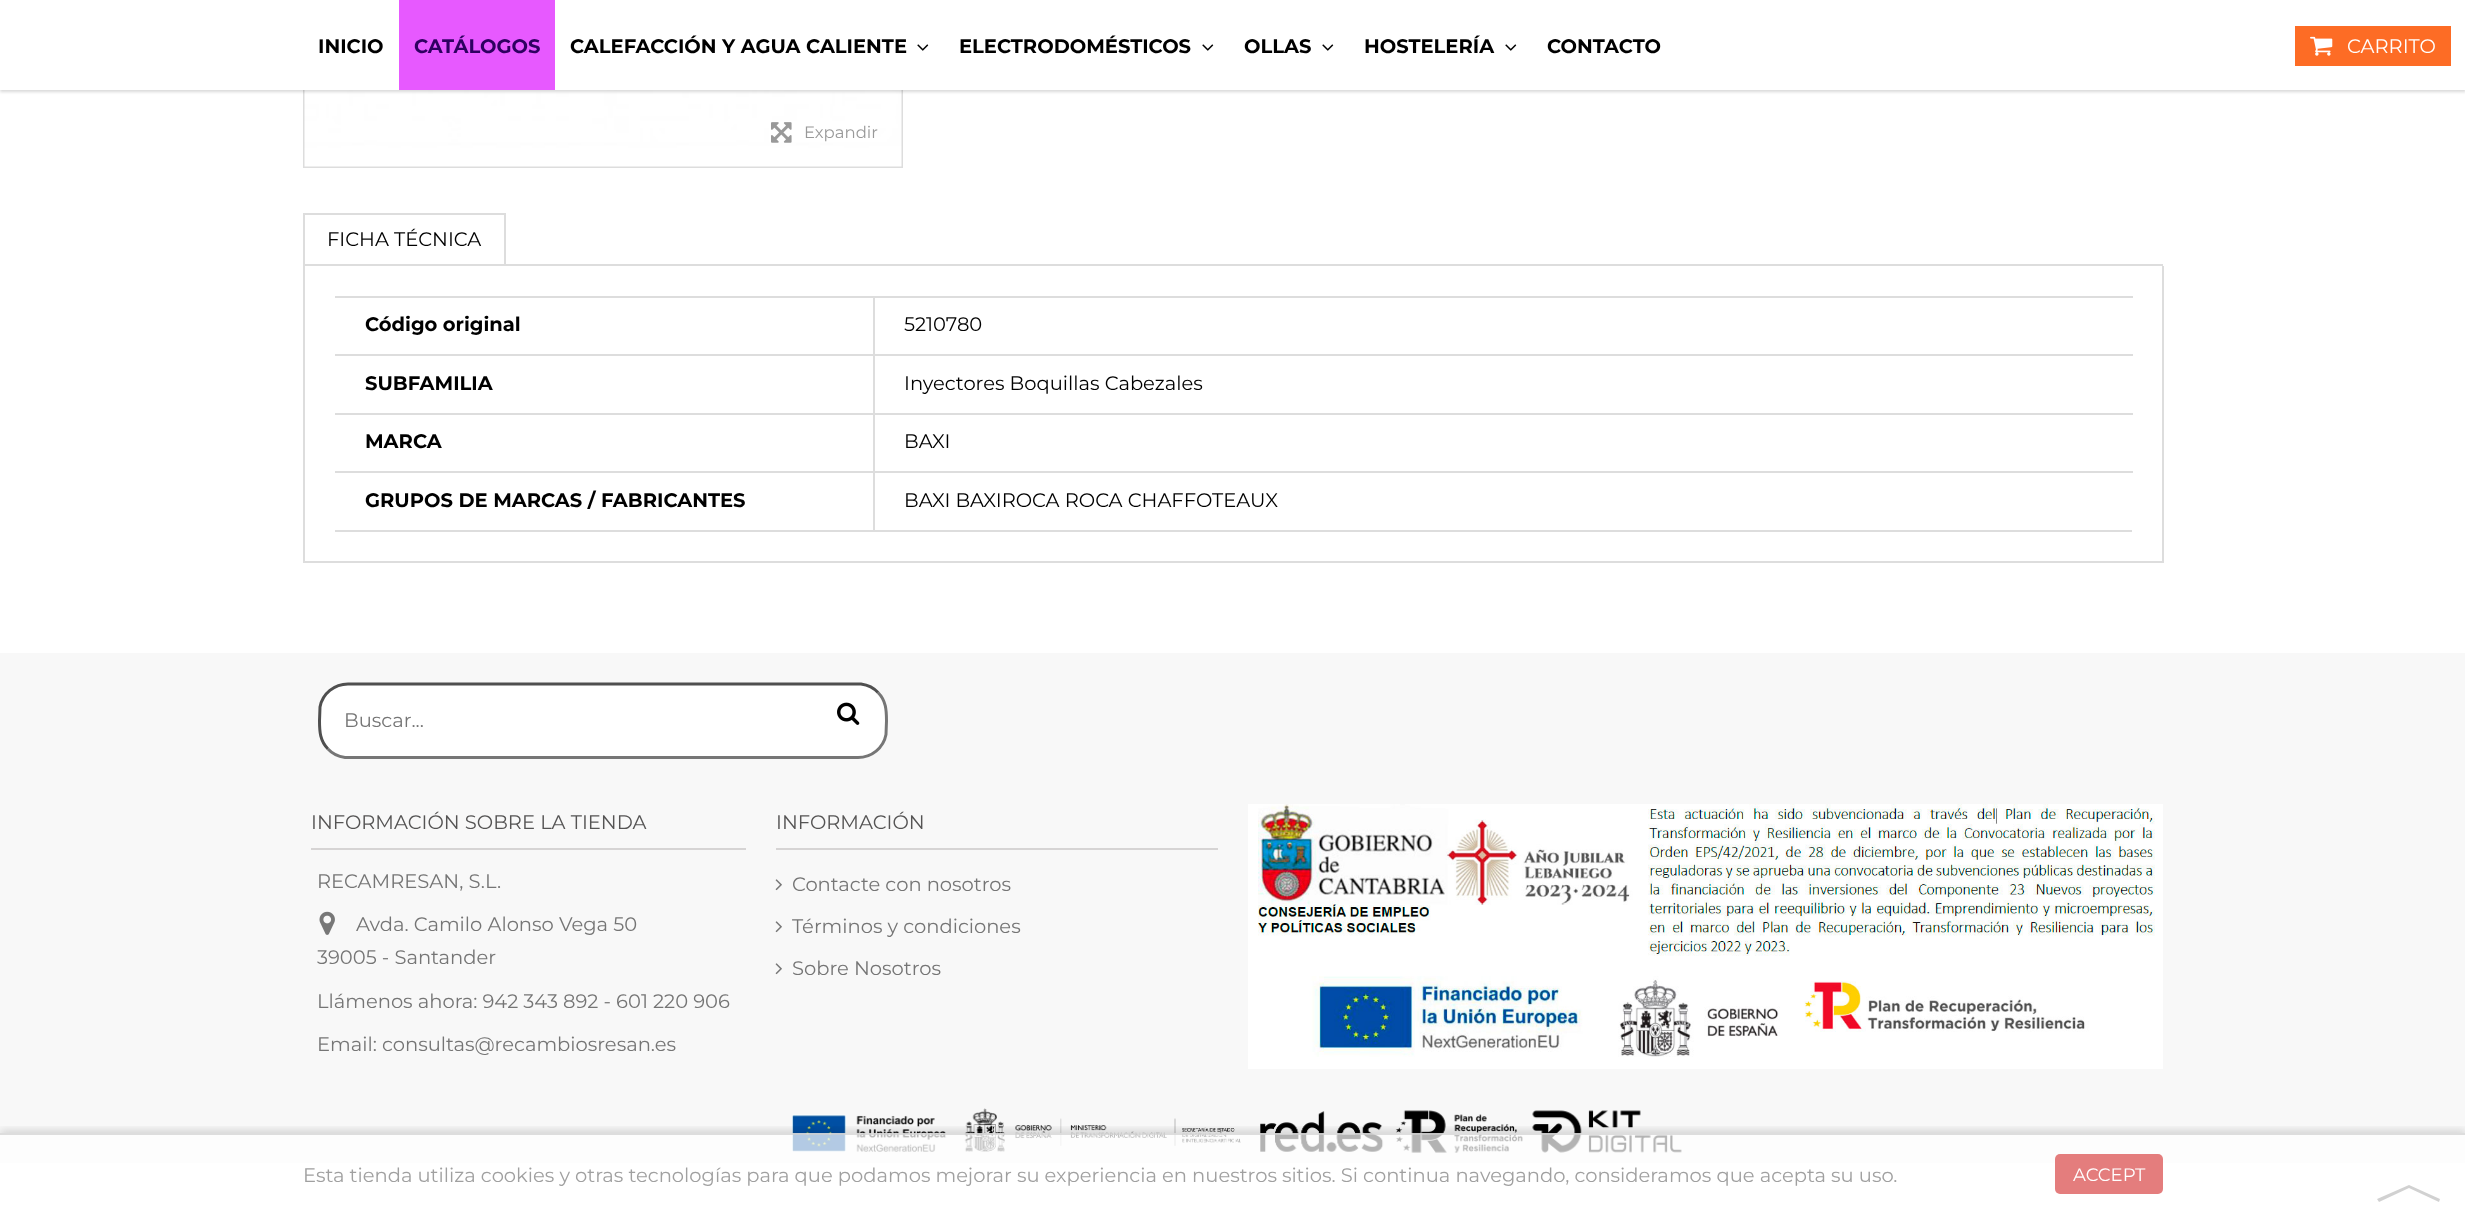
<svg xmlns="http://www.w3.org/2000/svg" width="2465" height="1230">
	<defs>
		<clipPath id="clip1"><rect x="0" y="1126" width="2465" height="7" /></clipPath>
	</defs>
	<rect width="100%" height="100%" fill="#FFFFFF" />
	<rect x="304" y="-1" width="598" height="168" fill="none" stroke="#DDDDDD" stroke-width="2" />
	<image x="304" y="90" width="598" height="77" href="assets/img3.png" />
	<rect x="0" y="2" width="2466" height="90" fill="#000000" fill-opacity="0.15" filter="blur(1.5px)" />
	<rect x="0" y="0" width="2465" height="90" fill="#FFFFFF" />
	<text x="318" y="53" font-family="Montserrat" font-size="19.5" font-weight="700" fill="#000000">INICIO</text>
	<rect x="399" y="0" width="156" height="90" fill="#E759FF" />
	<text x="414" y="53" font-family="Montserrat" font-size="19.5" font-weight="700" fill="#2E0061">CATÁLOGOS</text>
	<text x="570" y="53" font-family="Montserrat" font-size="19.5" font-weight="700" fill="#000000">CALEFACCIÓN Y AGUA CALIENTE</text>
	<image x="917" y="44" width="12" height="7" href="assets/img1.png" />
	<text x="959" y="53" font-family="Montserrat" font-size="19.5" font-weight="700" fill="#000000">ELECTRODOMÉSTICOS</text>
	<image x="1202" y="44" width="12" height="7" href="assets/img1.png" />
	<text x="1244" y="53" font-family="Montserrat" font-size="19.5" font-weight="700" fill="#000000">OLLAS</text>
	<image x="1322" y="44" width="12" height="7" href="assets/img1.png" />
	<text x="1364" y="53" font-family="Montserrat" font-size="19.5" font-weight="700" fill="#000000">HOSTELERÍA</text>
	<image x="1505" y="44" width="12" height="7" href="assets/img1.png" />
	<text x="1547" y="53" font-family="Montserrat" font-size="19.5" font-weight="700" fill="#000000">CONTACTO</text>
	<rect x="2295" y="26" width="156" height="40" fill="#FD6C25" />
	<image x="2310" y="36" width="23" height="20" href="assets/img2.png" />
	<text x="2347" y="53" font-family="Montserrat" font-size="19.5" fill="#FFFFFF">CARRITO</text>
	<image x="771" y="122" width="21" height="21" href="assets/img4.png" />
	<text x="804" y="138" font-family="Montserrat" font-size="16.5" fill="#999999">Expandir</text>
	<rect x="506" y="264" width="1657" height="2" fill="#DDDDDD" />
	<rect x="304" y="214" width="201" height="51" fill="none" stroke="#DDDDDD" stroke-width="2" />
	<text x="327" y="246" font-family="Montserrat" font-size="19.5" fill="#000000">FICHA TÉCNICA</text>
	<rect x="2162" y="266" width="2" height="297" fill="#DDDDDD" />
	<rect x="303" y="561" width="1860" height="2" fill="#DDDDDD" />
	<rect x="303" y="266" width="2" height="297" fill="#DDDDDD" />
	<rect x="335" y="530" width="1797" height="2" fill="#DDDDDD" />
	<rect x="335" y="296" width="1798" height="2" fill="#DDDDDD" />
	<text x="365" y="331" font-family="Montserrat" font-size="19.5" font-weight="700" fill="#000000">Código original</text>
	<text x="904" y="331" font-family="Montserrat" font-size="19.5" fill="#000000">5210780</text>
	<rect x="335" y="354" width="1798" height="2" fill="#DDDDDD" />
	<text x="365" y="390" font-family="Montserrat" font-size="19.5" font-weight="700" fill="#000000">SUBFAMILIA</text>
	<text x="904" y="390" font-family="Montserrat" font-size="19.5" fill="#000000">Inyectores Boquillas Cabezales</text>
	<rect x="335" y="413" width="1798" height="2" fill="#DDDDDD" />
	<text x="365" y="448" font-family="Montserrat" font-size="19.5" font-weight="700" fill="#000000">MARCA</text>
	<text x="904" y="448" font-family="Montserrat" font-size="19.5" fill="#000000">BAXI</text>
	<rect x="335" y="471" width="1798" height="2" fill="#DDDDDD" />
	<rect x="873" y="296" width="2" height="235" fill="#DDDDDD" />
	<text x="365" y="507" font-family="Montserrat" font-size="19.5" font-weight="700" fill="#000000">GRUPOS DE MARCAS / FABRICANTES</text>
	<text x="904" y="507" font-family="Montserrat" font-size="19.5" fill="#000000">BAXI BAXIROCA ROCA CHAFFOTEAUX</text>
	<rect x="0" y="653" width="2465" height="510" fill="#F8F8F8" />
	<rect x="318" y="683" width="570" height="76" rx="30" fill="#FFFFFF" />
	<path d="M878 692.5C886 700.5 886.5 710 886.5 721L886 734.5C883.5 748 871.5 757.5 858 757.5H345C338.5 756.5 332.5 754 328 749" fill="none" stroke="#767676" stroke-width="3" />
	<path d="M328 749C320 741 319.5 731.5 319.5 721L320 707C322.5 693.5 334.5 684 348 684H861C867.5 685 873.5 687.5 878 692.5" fill="none" stroke="#4F4F4F" stroke-width="3" />
	<text x="344" y="727" font-family="Montserrat" font-size="19.5" fill="#757575">Buscar...</text>
	<image x="837" y="702" width="23" height="23" href="assets/img5.png" />
	<rect x="311" y="848" width="435" height="2" fill="#D6D4D4" />
	<text x="311" y="829" font-family="Montserrat" font-size="19.5" fill="#555454">INFORMACIÓN SOBRE LA TIENDA</text>
	<text x="317" y="888" font-family="Montserrat" font-size="19.5" fill="#757575">RECAMRESAN, S.L.</text>
	<image x="319" y="911" width="16" height="24" href="assets/img6.png" />
	<g font-family="Montserrat" font-size="19.5" fill="#757575">
		<text x="356" y="931">Avda. Camilo Alonso Vega 50</text>
		<text x="317" y="964">39005 - Santander</text>
		<text x="317" y="1008">Llámenos ahora: 942 343 892 - 601 220 906</text>
		<text x="317" y="1051">Email: consultas@recambiosresan.es</text>
	</g>
	<rect x="776" y="848" width="442" height="2" fill="#D6D4D4" />
	<text x="776" y="829" font-family="Montserrat" font-size="19.5" fill="#555454">INFORMACIÓN</text>
	<image x="775" y="879" width="7" height="12" href="assets/img7.png" />
	<text x="792" y="891" font-family="Montserrat" font-size="19.5" fill="#757575">Contacte con nosotros</text>
	<image x="775" y="921" width="7" height="12" href="assets/img7.png" />
	<text x="792" y="933" font-family="Montserrat" font-size="19.5" fill="#757575">Términos y condiciones</text>
	<image x="775" y="963" width="7" height="12" href="assets/img7.png" />
	<text x="792" y="975" font-family="Montserrat" font-size="19.5" fill="#757575">Sobre Nosotros</text>
	<image x="1248" y="804" width="915" height="265" href="assets/img8.png" />
	<image x="792" y="1108" width="890" height="45" href="assets/img9.png" />
	<path d="M2409 1188L2439 1202L2440 1199L2409 1185ZM2377 1199L2379 1202L2409 1188V1185Z" fill="#666666" />
	<g clip-path="url(#clip1)">
		<rect x="0" y="1130" width="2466" height="97" fill="#000000" fill-opacity="0.14" filter="blur(4px)" />
	</g>
	<rect x="0" y="1133" width="2465" height="69" fill="#FFFFFF" fill-opacity="0.7" />
	<rect x="0" y="1133" width="2465" height="2" fill="#CECECE" fill-opacity="0.7" />
	<text x="303" y="1182" font-family="Montserrat" font-size="19.5" fill="#A0A0A0">Esta tienda utiliza cookies y otras tecnologías para que podamos mejorar su experiencia en nuestros sitios. Si continua navegando, consideramos que acepta su uso.</text>
	<rect x="2055" y="1154" width="108" height="40" rx="5" fill="#E47D7D" />
	<text x="2073" y="1181" font-family="Montserrat" font-size="18" fill="#FFFFFF">ACCEPT</text>
</svg>
